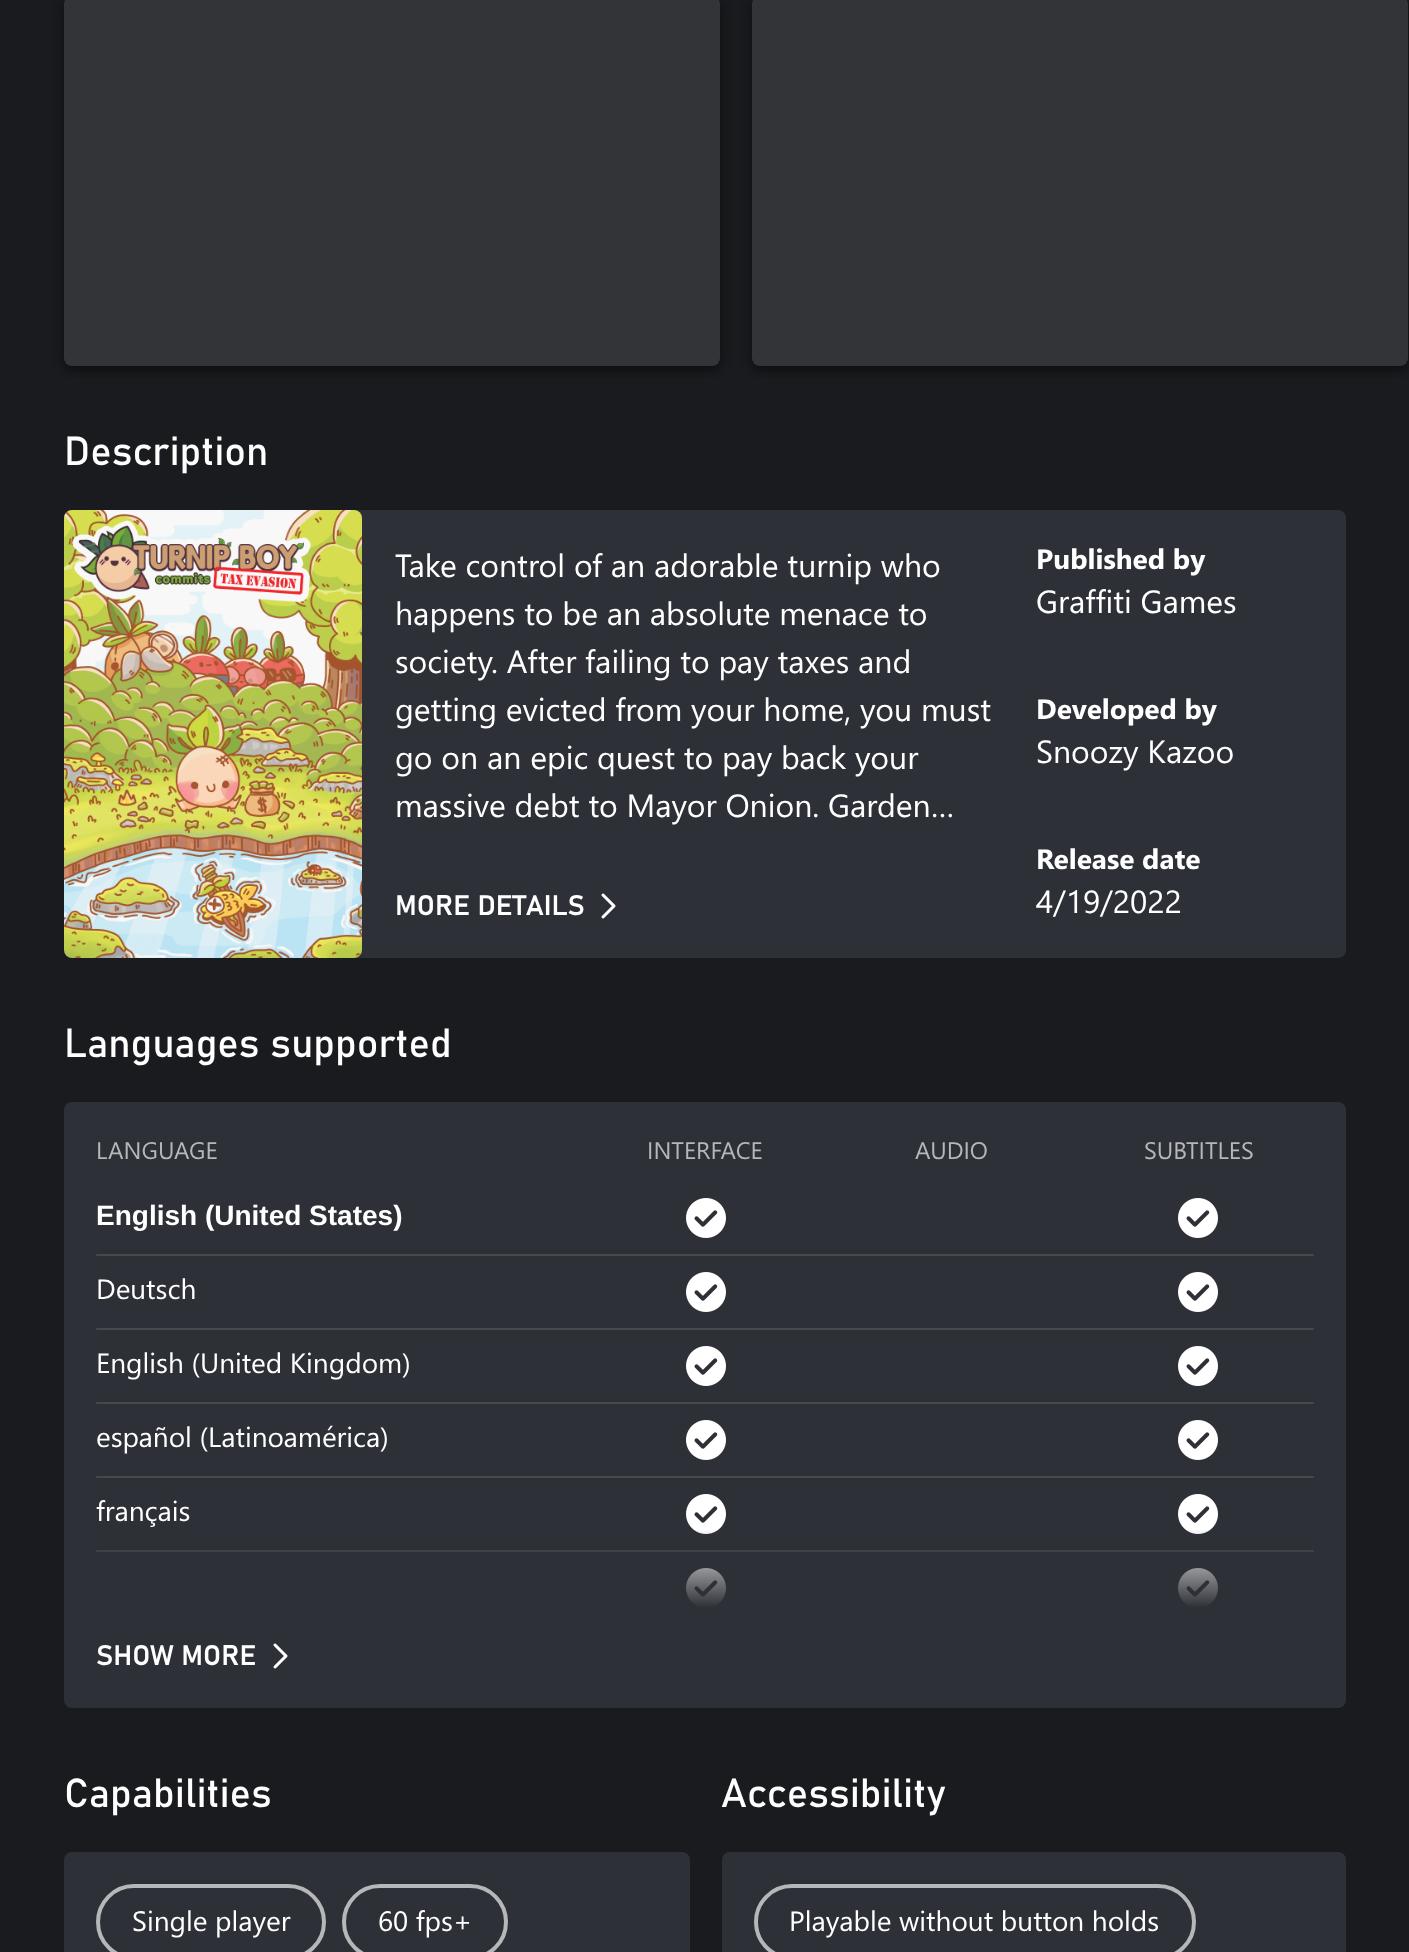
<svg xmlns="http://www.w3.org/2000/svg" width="1409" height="1952">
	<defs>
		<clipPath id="clip1"><rect x="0" y="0" width="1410" height="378" /></clipPath>
		<linearGradient id="g1" gradientUnits="userSpaceOnUse" x1="705" y1="1528" x2="705" y2="1608"><stop offset="0" stop-color="#2D3036" stop-opacity="0" /><stop offset="1" stop-color="#2D3036" /></linearGradient>
	</defs>
	<rect width="100%" height="100%" fill="#1A1B1E" />
	<g clip-path="url(#clip1)">
		<rect x="64" y="0" width="656" height="370" rx="8" fill="#000000" fill-opacity="0.5" filter="blur(6px)" />
	</g>
	<rect x="64" y="-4" width="656" height="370" rx="8" fill="#323438" />
	<g clip-path="url(#clip1)">
		<rect x="752" y="0" width="656" height="370" rx="8" fill="#000000" fill-opacity="0.5" filter="blur(6px)" />
	</g>
	<rect x="752" y="-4" width="656" height="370" rx="8" fill="#323438" />
	<text x="64" y="465" font-family="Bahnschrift" font-size="40" fill="#FFFFFF">Description</text>
	<rect x="64" y="510" width="1282" height="448" rx="8" fill="#2D3036" />
	<image x="64" y="510" width="298" height="448" href="assets/img1.png" />
	<g font-family="Segoe UI" font-size="32" fill="#FFFFFF">
		<text x="395" y="577">Take control of an adorable turnip who</text>
		<text x="395" y="625">happens to be an absolute menace to</text>
		<text x="395" y="673">society. After failing to pay taxes and</text>
		<text x="395" y="721">getting evicted from your home, you must</text>
		<text x="395" y="769">go on an epic quest to pay back your</text>
		<text x="395" y="817">massive debt to Mayor Onion. Garden…</text>
	</g>
	<text x="395" y="915" font-family="Bahnschrift" font-size="28" font-weight="600" fill="#FFFFFF">MORE DETAILS</text>
	<image x="601" y="893" width="15" height="26" href="assets/img2.png" />
	<text x="1036" y="569" font-family="Segoe UI" font-size="28" font-weight="700" fill="#FFFFFF">Published by</text>
	<text x="1036" y="613" font-family="Segoe UI" font-size="32" fill="#FFFFFF">Graffiti Games</text>
	<text x="1036" y="719" font-family="Segoe UI" font-size="28" font-weight="700" fill="#FFFFFF">Developed by</text>
	<text x="1036" y="763" font-family="Segoe UI" font-size="32" fill="#FFFFFF">Snoozy Kazoo</text>
	<text x="1036" y="869" font-family="Segoe UI" font-size="28" font-weight="700" fill="#FFFFFF">Release date</text>
	<text x="1036" y="913" font-family="Segoe UI" font-size="32" fill="#FFFFFF">4/19/2022</text>
	<text x="64" y="1057" font-family="Bahnschrift" font-size="40" fill="#FFFFFF">Languages supported</text>
	<rect x="64" y="1102" width="1282" height="606" rx="8" fill="#2D3036" />
	<g font-family="Segoe UI" font-size="24" fill="#B6B7B9">
		<text x="96" y="1159">LANGUAGE</text>
		<text x="647" y="1159">INTERFACE</text>
		<text x="915" y="1159">AUDIO</text>
		<text x="1144" y="1159">SUBTITLES</text>
	</g>
	<text x="96" y="1225" font-family="Liberation Sans" font-size="28" font-weight="700" fill="#FFFFFF">English (United States)</text>
	<image x="686" y="1198" width="40" height="40" href="assets/img3.png" />
	<image x="1178" y="1198" width="40" height="40" href="assets/img3.png" />
	<rect x="96" y="1254" width="1218" height="2" rx="1" fill="#46494E" />
	<text x="96" y="1299" font-family="Segoe UI" font-size="28" fill="#FFFFFF">Deutsch</text>
	<image x="686" y="1272" width="40" height="40" href="assets/img3.png" />
	<image x="1178" y="1272" width="40" height="40" href="assets/img3.png" />
	<rect x="96" y="1328" width="1218" height="2" rx="1" fill="#46494E" />
	<text x="96" y="1373" font-family="Segoe UI" font-size="28" fill="#FFFFFF">English (United Kingdom)</text>
	<image x="686" y="1346" width="40" height="40" href="assets/img3.png" />
	<image x="1178" y="1346" width="40" height="40" href="assets/img3.png" />
	<rect x="96" y="1402" width="1218" height="2" rx="1" fill="#46494E" />
	<text x="96" y="1447" font-family="Segoe UI" font-size="28" fill="#FFFFFF">español (Latinoamérica)</text>
	<image x="686" y="1420" width="40" height="40" href="assets/img3.png" />
	<image x="1178" y="1420" width="40" height="40" href="assets/img3.png" />
	<rect x="96" y="1476" width="1218" height="2" rx="1" fill="#46494E" />
	<text x="96" y="1521" font-family="Segoe UI" font-size="28" fill="#FFFFFF">français</text>
	<image x="686" y="1494" width="40" height="40" href="assets/img3.png" />
	<image x="1178" y="1494" width="40" height="40" href="assets/img3.png" />
	<rect x="96" y="1550" width="1218" height="2" rx="1" fill="#46494E" />
	<image x="686" y="1568" width="40" height="40" href="assets/img3.png" />
	<image x="1178" y="1568" width="40" height="40" href="assets/img3.png" />
	<rect x="96" y="1530" width="1218" height="78" fill="url(#g1)" />
	<text x="96" y="1665" font-family="Bahnschrift" font-size="28" font-weight="600" fill="#FFFFFF">SHOW MORE</text>
	<image x="273" y="1643" width="15" height="26" href="assets/img2.png" />
	<text x="64" y="1807" font-family="Bahnschrift" font-size="40" fill="#FFFFFF">Capabilities</text>
	<rect x="64" y="1852" width="626" height="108" rx="8" fill="#2D3036" />
	<rect x="98" y="1886" width="226" height="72" rx="36" fill="none" stroke="#B6B7B9" stroke-width="4" />
	<text x="132" y="1931" font-family="Segoe UI" font-size="28" fill="#FFFFFF">Single player</text>
	<rect x="344" y="1886" width="162" height="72" rx="36" fill="none" stroke="#B6B7B9" stroke-width="4" />
	<text x="378" y="1931" font-family="Segoe UI" font-size="28" fill="#FFFFFF">60 fps+</text>
	<text x="721" y="1807" font-family="Bahnschrift" font-size="40" fill="#FFFFFF">Accessibility</text>
	<rect x="722" y="1852" width="624" height="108" rx="8" fill="#2D3036" />
	<rect x="756" y="1886" width="438" height="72" rx="36" fill="none" stroke="#B6B7B9" stroke-width="4" />
	<text x="789" y="1931" font-family="Segoe UI" font-size="28" fill="#FFFFFF">Playable without button holds</text>
</svg>
